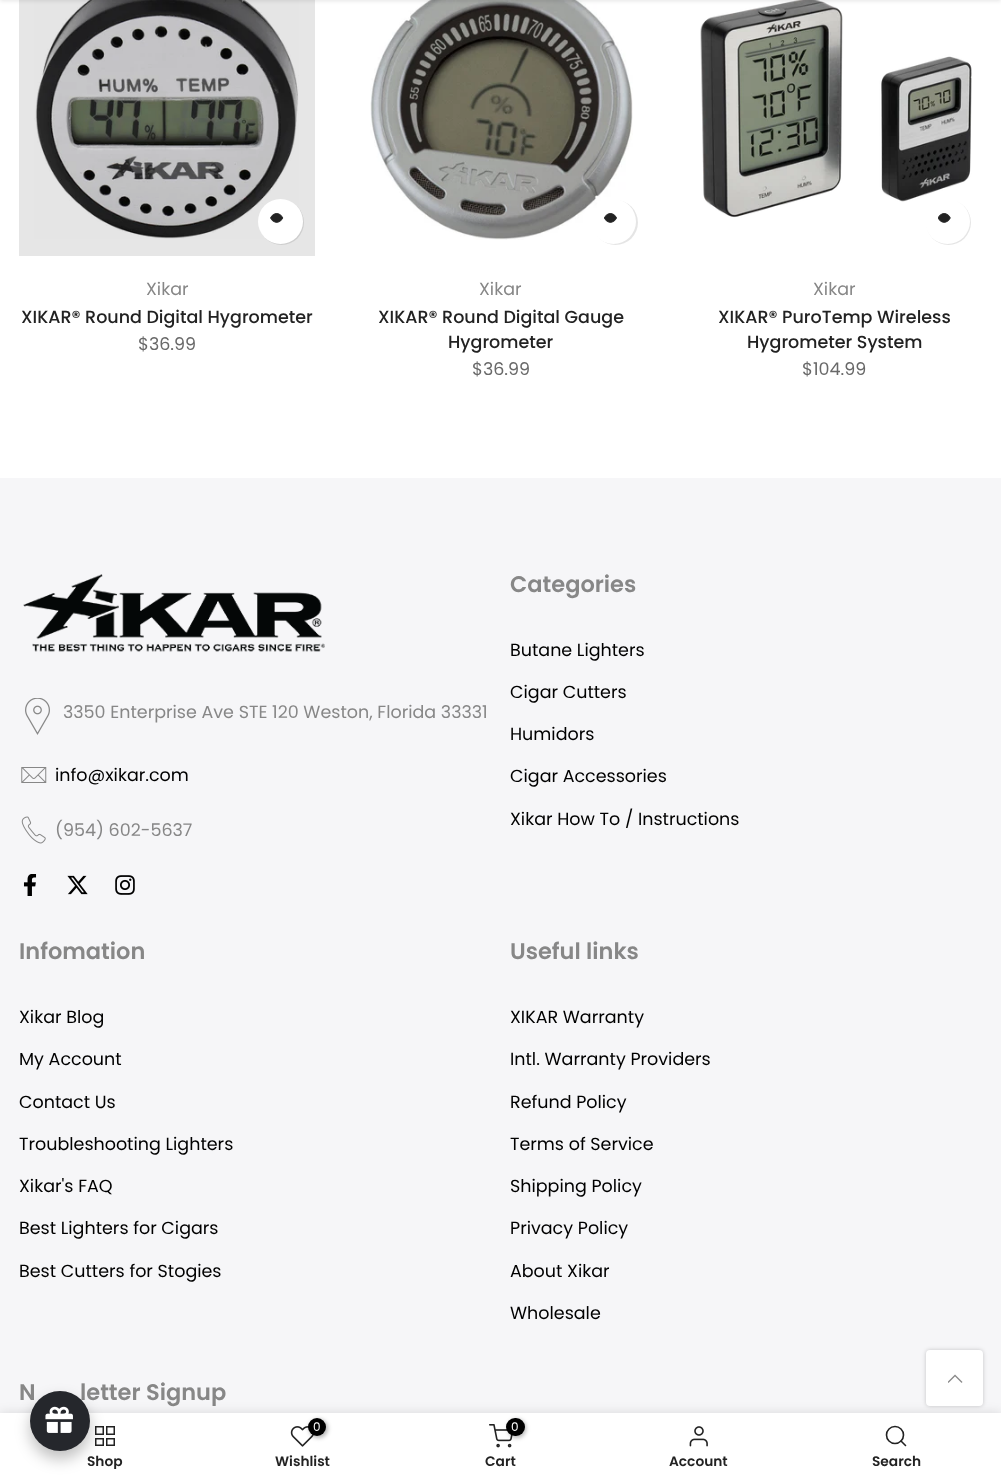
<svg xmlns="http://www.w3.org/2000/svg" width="1001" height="1481">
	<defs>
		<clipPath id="clip1"><rect x="19" y="1455" width="172" height="14" /></clipPath>
	</defs>
	<rect width="100%" height="100%" fill="#FFFFFF" />
	<rect x="19" y="0" width="296" height="256" fill="#E6E6E6" />
	<image x="34" y="0" width="265" height="239" href="assets/img1.png" />
	<image x="370" y="0" width="263" height="240" href="assets/img3.png" />
	<image x="700" y="0" width="272" height="218" href="assets/img5.png" />
	<rect x="0" y="-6" width="1001" height="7" fill="#000000" fill-opacity="0.1" filter="blur(2px)" />
	<rect x="259" y="200" width="45" height="45" rx="22.5" fill="#000000" fill-opacity="0.1" filter="blur(0.5px)" />
	<circle cx="280.5" cy="221.5" r="22.5" fill="#FFFFFF" />
	<image x="270" y="213" width="14" height="10" href="assets/img2.png" />
	<text x="146" y="295" font-family="Poppins" font-size="17.5" fill="#878787">Xikar</text>
	<text x="21" y="323" font-family="Poppins" font-size="17.5" font-weight="500" fill="#222222">XIKAR® Round Digital Hygrometer</text>
	<text x="138" y="350" font-family="Poppins" font-size="17.5" fill="#696969">$36.99</text>
	<rect x="593" y="200" width="45" height="45" rx="22.5" fill="#000000" fill-opacity="0.1" filter="blur(0.5px)" />
	<circle cx="613.5" cy="221.5" r="22.5" fill="#FFFFFF" />
	<image x="604" y="213" width="13" height="10" href="assets/img4.png" />
	<text x="479" y="295" font-family="Poppins" font-size="17.5" fill="#878787">Xikar</text>
	<g font-family="Poppins" font-size="17.5" font-weight="500" fill="#222222">
		<text x="378" y="323">XIKAR® Round Digital Gauge</text>
		<text x="448" y="348">Hygrometer</text>
	</g>
	<text x="472" y="375" font-family="Poppins" font-size="17.5" fill="#696969">$36.99</text>
	<rect x="926" y="200" width="45" height="45" rx="22.5" fill="#000000" fill-opacity="0.1" filter="blur(0.5px)" />
	<circle cx="947.5" cy="221.5" r="22.5" fill="#FFFFFF" />
	<image x="938" y="213" width="13" height="10" href="assets/img6.png" />
	<text x="813" y="295" font-family="Poppins" font-size="17.5" fill="#878787">Xikar</text>
	<g font-family="Poppins" font-size="17.5" font-weight="500" fill="#222222">
		<text x="718" y="323">XIKAR® PuroTemp Wireless</text>
		<text x="747" y="348">Hygrometer System</text>
	</g>
	<text x="802" y="375" font-family="Poppins" font-size="17.5" fill="#696969">$104.99</text>
	<rect x="0" y="478" width="1001" height="935" fill="#F6F6F8" />
	<image x="23" y="574" width="302" height="78" href="assets/img7.png" />
	<image x="25" y="698" width="25" height="37" href="assets/img8.png" />
	<text x="63" y="718" font-family="Poppins" font-size="17.5" fill="#878787">3350 Enterprise Ave STE 120 Weston, Florida 33331</text>
	<image x="21" y="767" width="26" height="16" href="assets/img9.png" />
	<text x="55" y="781" font-family="Poppins" font-size="17.5" fill="#000000">info@xikar.com</text>
	<image x="21" y="816" width="25" height="28" href="assets/img10.png" />
	<text x="55" y="836" font-family="Poppins" font-size="17.5" fill="#878787">(954) 602-5637</text>
	<image x="23" y="874" width="14" height="22" href="assets/img11.png" />
	<image x="67" y="875" width="21" height="20" href="assets/img12.png" />
	<image x="115" y="875" width="20" height="20" href="assets/img13.png" />
	<text x="510" y="592" font-family="Poppins" font-size="22.5" font-weight="600" fill="#878787">Categories</text>
	<g font-family="Poppins" font-size="17.5" fill="#000000">
		<text x="510" y="656">Butane Lighters</text>
		<text x="510" y="698">Cigar Cutters</text>
		<text x="510" y="740">Humidors</text>
		<text x="510" y="782">Cigar Accessories</text>
		<text x="510" y="825">Xikar How To / Instructions</text>
	</g>
	<text x="19" y="959" font-family="Poppins" font-size="22.5" font-weight="600" fill="#878787">Infomation</text>
	<g font-family="Poppins" font-size="17.5" fill="#000000">
		<text x="19" y="1023">Xikar Blog</text>
		<text x="19" y="1065">My Account</text>
		<text x="19" y="1108">Contact Us</text>
		<text x="19" y="1150">Troubleshooting Lighters</text>
		<text x="19" y="1192">Xikar's FAQ</text>
		<text x="19" y="1234">Best Lighters for Cigars</text>
		<text x="19" y="1277">Best Cutters for Stogies</text>
	</g>
	<text x="510" y="959" font-family="Poppins" font-size="22.5" font-weight="600" fill="#878787">Useful links</text>
	<g font-family="Poppins" font-size="17.5" fill="#000000">
		<text x="510" y="1023">XIKAR Warranty</text>
		<text x="510" y="1065">Intl. Warranty Providers</text>
		<text x="510" y="1108">Refund Policy</text>
		<text x="510" y="1150">Terms of Service</text>
		<text x="510" y="1192">Shipping Policy</text>
		<text x="510" y="1234">Privacy Policy</text>
		<text x="510" y="1277">About Xikar</text>
		<text x="510" y="1319">Wholesale</text>
	</g>
	<g font-family="Poppins" font-size="22.5" font-weight="600" fill="#878787">
		<text x="19" y="1400">N</text>
		<text x="80" y="1400">letter Signup</text>
	</g>
	<rect x="926" y="1350" width="57" height="56" rx="4" fill="#000000" fill-opacity="0.2" filter="blur(2px)" />
	<rect x="0" y="1413" width="1001" height="68" fill="#000000" fill-opacity="0.12" filter="blur(5.5px)" />
	<rect x="926" y="1350" width="57" height="56" rx="4" fill="#FFFFFF" />
	<image x="948" y="1374" width="15" height="9" href="assets/img14.png" />
	<rect x="0" y="1413" width="1001" height="68" fill="#FFFFFF" />
	<rect x="95.75" y="1426.75" width="7.5" height="7.5" fill="none" stroke="#222222" stroke-width="1.5" />
	<rect x="106.75" y="1426.75" width="7.5" height="7.5" fill="none" stroke="#222222" stroke-width="1.5" />
	<rect x="95.75" y="1438.75" width="7.5" height="6.5" fill="none" stroke="#222222" stroke-width="1.5" />
	<rect x="106.75" y="1438.75" width="7.5" height="6.5" fill="none" stroke="#222222" stroke-width="1.5" />
	<rect x="30" y="1399" width="60" height="60" rx="30" fill="#000000" fill-opacity="0.25" filter="blur(7.5px)" />
	<circle cx="60" cy="1421" r="30" fill="#25272C" />
	<image x="45" y="1406" width="28" height="27" href="assets/img15.png" />
	<g clip-path="url(#clip1)">
		<text x="87" y="1466" font-family="Poppins" font-size="13.75" font-weight="600" fill="#222222">Shop</text>
	</g>
	<image x="290" y="1426" width="24" height="21" href="assets/img16.png" />
	<rect x="309" y="1419" width="19" height="19" rx="9.5" fill="#000000" fill-opacity="0.3" filter="blur(2px)" />
	<circle cx="317" cy="1427" r="9" fill="#000000" />
	<text x="313" y="1431" font-family="Poppins" font-size="12" fill="#FFFFFF">0</text>
	<text x="275" y="1466" font-family="Poppins" font-size="13.75" font-weight="600" fill="#222222">Wishlist</text>
	<image x="489" y="1424" width="24" height="24" href="assets/img17.png" />
	<rect x="508" y="1419" width="18" height="19" rx="9" fill="#000000" fill-opacity="0.3" filter="blur(2px)" />
	<rect x="506" y="1418" width="19" height="18" rx="9" fill="#000000" />
	<text x="511" y="1431" font-family="Poppins" font-size="12" fill="#FFFFFF">0</text>
	<text x="485" y="1466" font-family="Poppins" font-size="13.75" font-weight="600" fill="#222222">Cart</text>
	<image x="689" y="1426" width="19" height="21" href="assets/img18.png" />
	<text x="669" y="1466" font-family="Poppins" font-size="13.75" font-weight="600" fill="#222222">Account</text>
	<circle cx="895" cy="1435" r="8.5" fill="none" stroke="#222222" stroke-width="1.6" />
	<path d="M905.5 1445.5L901 1441" fill="none" stroke="#222222" stroke-width="1.6" stroke-linecap="round" stroke-linejoin="round" />
	<text x="872" y="1466" font-family="Poppins" font-size="13.75" font-weight="600" fill="#222222">Search</text>
</svg>
